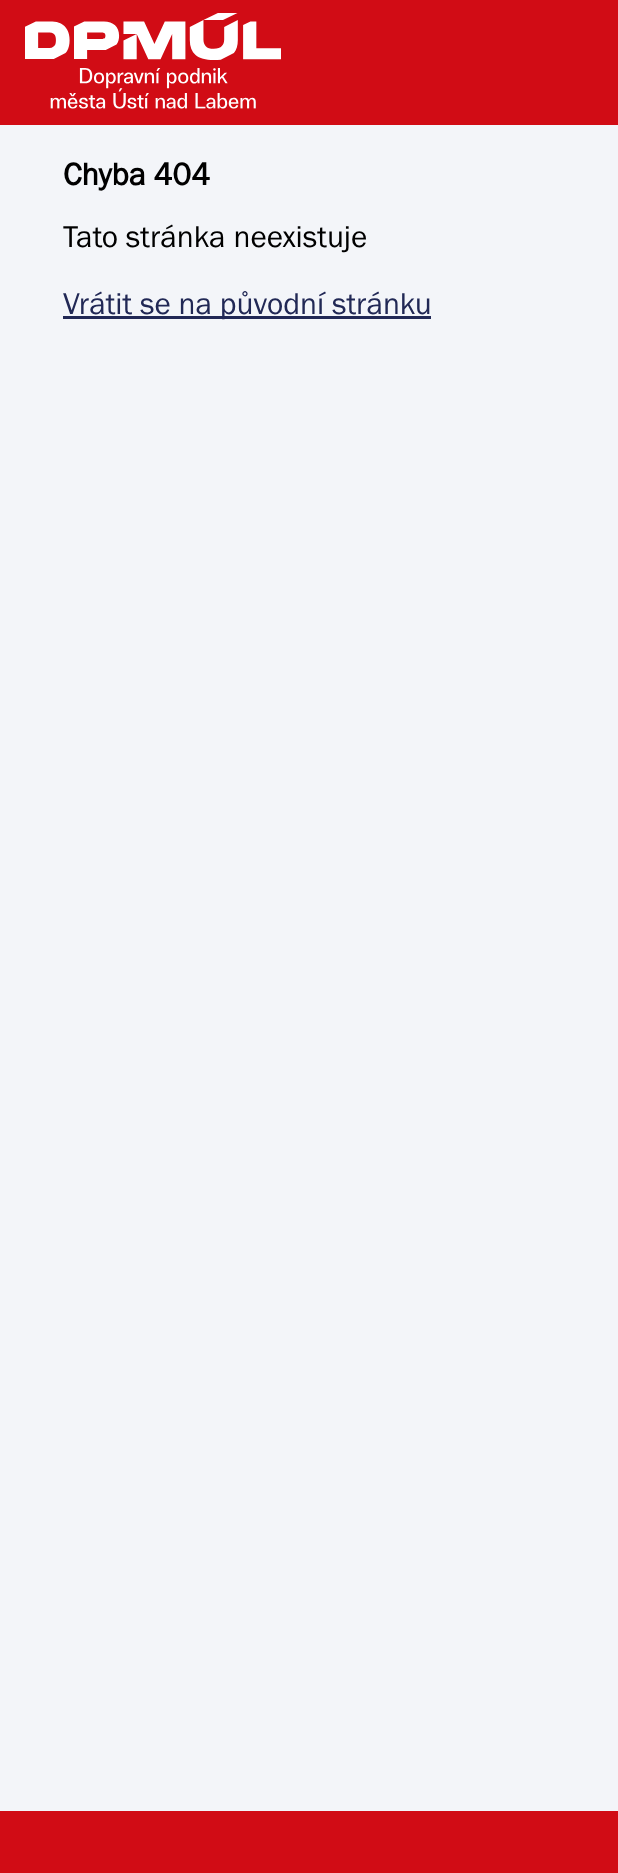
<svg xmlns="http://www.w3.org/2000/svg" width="618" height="1873">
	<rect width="100%" height="100%" fill="#F3F5F9" />
	<rect x="0" y="0" width="618" height="125" fill="#D10C15" />
	<image x="25" y="13" width="256" height="96" href="assets/img1.png" />
	<text x="63" y="185" font-family="Franklin Gothic" font-size="32" font-weight="700" fill="#000000">Chyba 404</text>
	<text x="63" y="247" font-family="Franklin Gothic" font-size="31.25" fill="#000000">Tato stránka neexistuje</text>
	<rect x="63" y="316" width="368" height="3" fill="#212855" />
	<text x="63" y="314" font-family="Franklin Gothic" font-size="31.25" fill="#212855">Vrátit se na původní stránku</text>
	<rect x="0" y="1811" width="618" height="62" fill="#D10C15" />
</svg>
